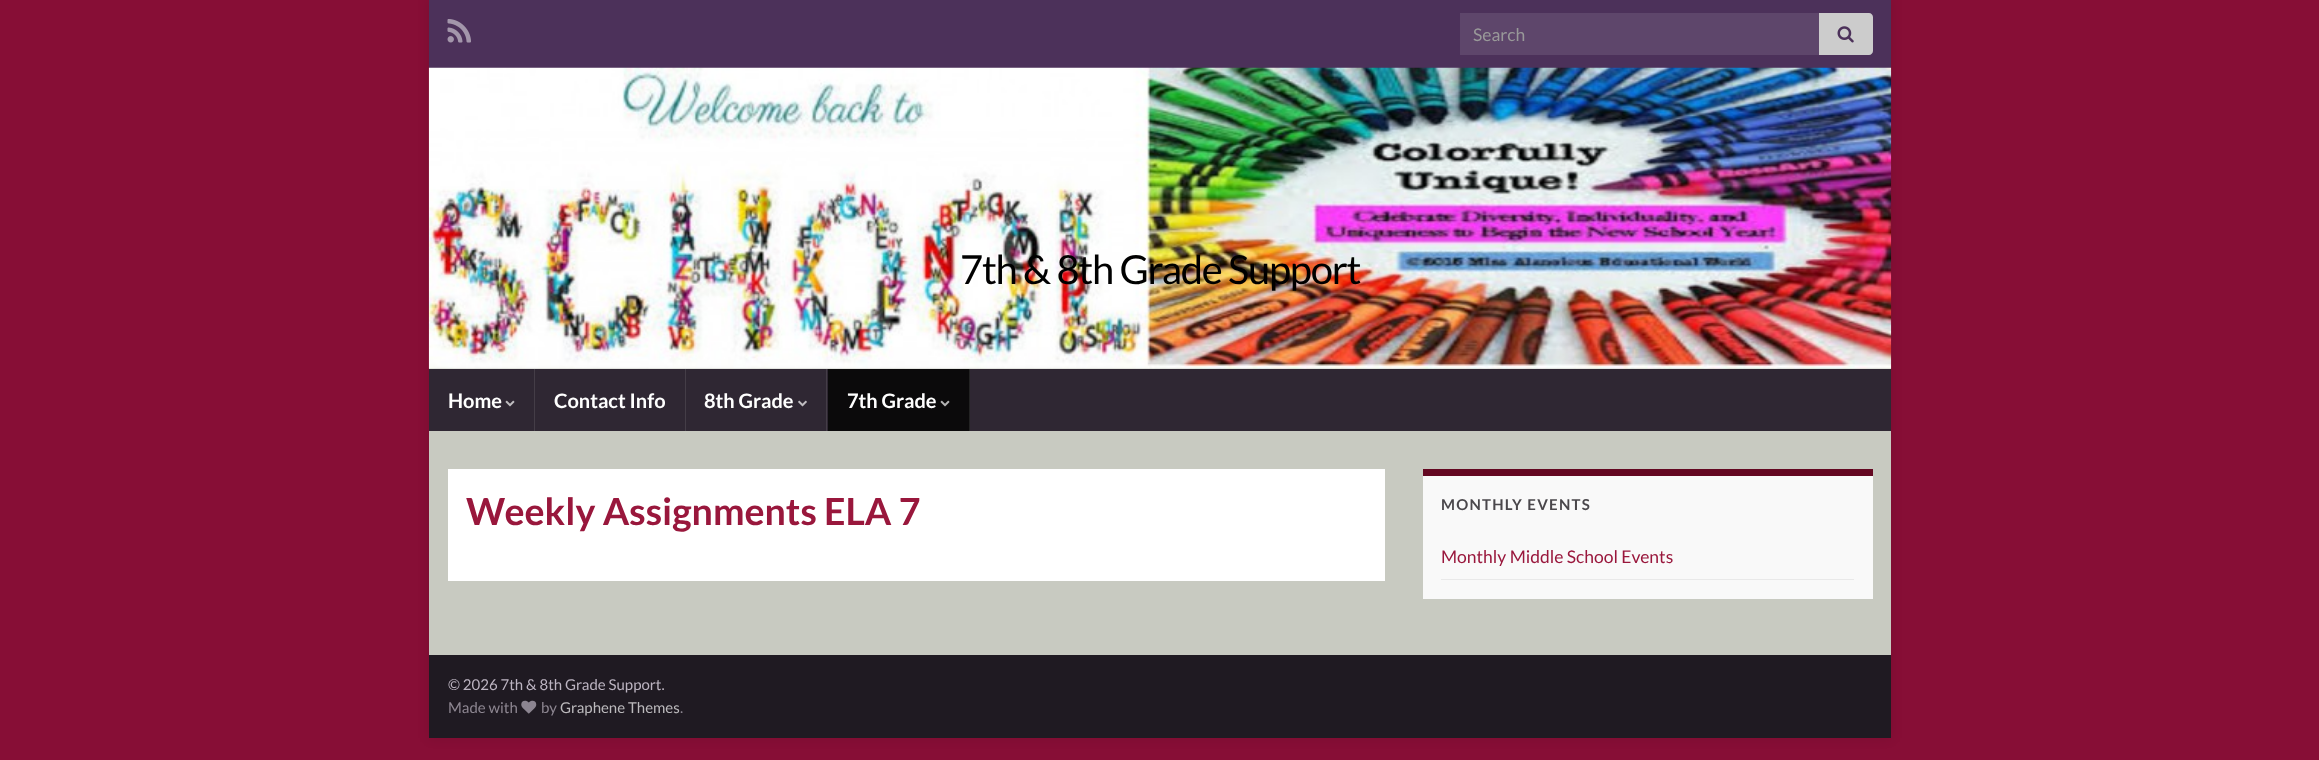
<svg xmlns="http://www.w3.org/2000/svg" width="2319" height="760">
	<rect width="100%" height="100%" fill="#870E36" />
	<rect x="429" y="0" width="1462" height="738" fill="#000000" fill-opacity="0.1" filter="blur(6px)" />
	<rect x="429" y="0" width="1462" height="68" fill="#4C315A" />
	<image x="447" y="19" width="24" height="24" href="assets/img1.png" />
	<rect x="1460" y="13" width="359" height="42" fill="#5E466B" />
	<text x="1473" y="41" font-family="Lato" font-size="17.5" fill="#999999">Search</text>
	<path d="M1819 13H1869C1871 13 1873 15 1873 17V51C1873 53 1871 55 1869 55H1819Z" fill="#CCCCCC" />
	<image x="1837" y="26" width="17" height="17" href="assets/img2.png" />
	<rect x="429" y="368" width="1462" height="1" fill="#C8CAC1" />
	<image x="428" y="67" width="1464" height="302" href="assets/img3.png" />
	<rect x="429" y="369" width="1462" height="62" fill="#2F2733" />
	<text x="960" y="284" font-family="Lato" font-size="40" letter-spacing="-1.25" fill="#000000">7th &amp; 8th Grade Support</text>
	<rect x="534" y="369" width="1" height="62" fill="#443D47" />
	<text x="448" y="408" font-family="Lato" font-size="20" font-weight="700" fill="#FFFFFF">Home</text>
	<image x="505" y="400" width="10" height="7" href="assets/img4.png" />
	<rect x="685" y="369" width="1" height="62" fill="#443D47" />
	<text x="554" y="408" font-family="Lato" font-size="20" font-weight="700" fill="#FFFFFF">Contact Info</text>
	<rect x="826" y="369" width="1" height="62" fill="#443D47" />
	<text x="704" y="408" font-family="Lato" font-size="20" font-weight="700" fill="#FFFFFF">8th Grade</text>
	<image x="798" y="400" width="9" height="7" href="assets/img5.png" />
	<rect x="828" y="369" width="141" height="62" fill="#0B0A0B" />
	<rect x="969" y="369" width="1" height="62" fill="#232323" />
	<text x="847" y="408" font-family="Lato" font-size="20" font-weight="700" fill="#FFFFFF">7th Grade</text>
	<image x="940" y="400" width="10" height="7" href="assets/img6.png" />
	<rect x="429" y="431" width="1462" height="224" fill="#C8CAC1" />
	<rect x="448" y="469" width="937" height="112" fill="#FFFFFF" />
	<text x="466" y="525" font-family="Lato" font-size="37.5" font-weight="700" fill="#99173C">Weekly Assignments ELA 7</text>
	<rect x="1423" y="476" width="450" height="123" fill="#F9F9F9" />
	<rect x="1423" y="469" width="450" height="7" fill="#640822" />
	<text x="1441" y="510" font-family="Lato" font-size="15" font-weight="700" letter-spacing="1.25" fill="#4A474B">MONTHLY EVENTS</text>
	<rect x="1441" y="579" width="413" height="1" fill="#E9E9E9" />
	<text x="1441" y="563" font-family="Lato" font-size="17.5" fill="#99173C">Monthly Middle School Events</text>
	<rect x="429" y="655" width="1462" height="83" fill="#1F1A22" />
	<text x="448" y="690" font-family="Lato" font-size="15" fill="#BCB4C1">© 2026 7th &amp; 8th Grade Support.</text>
	<text x="448" y="713" font-family="Lato" font-size="15" fill="#8D8691">Made with</text>
	<image x="521" y="700" width="16" height="14" href="assets/img7.png" />
	<text x="541" y="713" font-family="Lato" font-size="15" fill="#8D8691">by</text>
	<text x="560" y="713" font-family="Lato" font-size="15" fill="#BCBABD">Graphene Themes</text>
	<text x="680" y="713" font-family="Lato" font-size="15" fill="#8D8691">.</text>
</svg>
